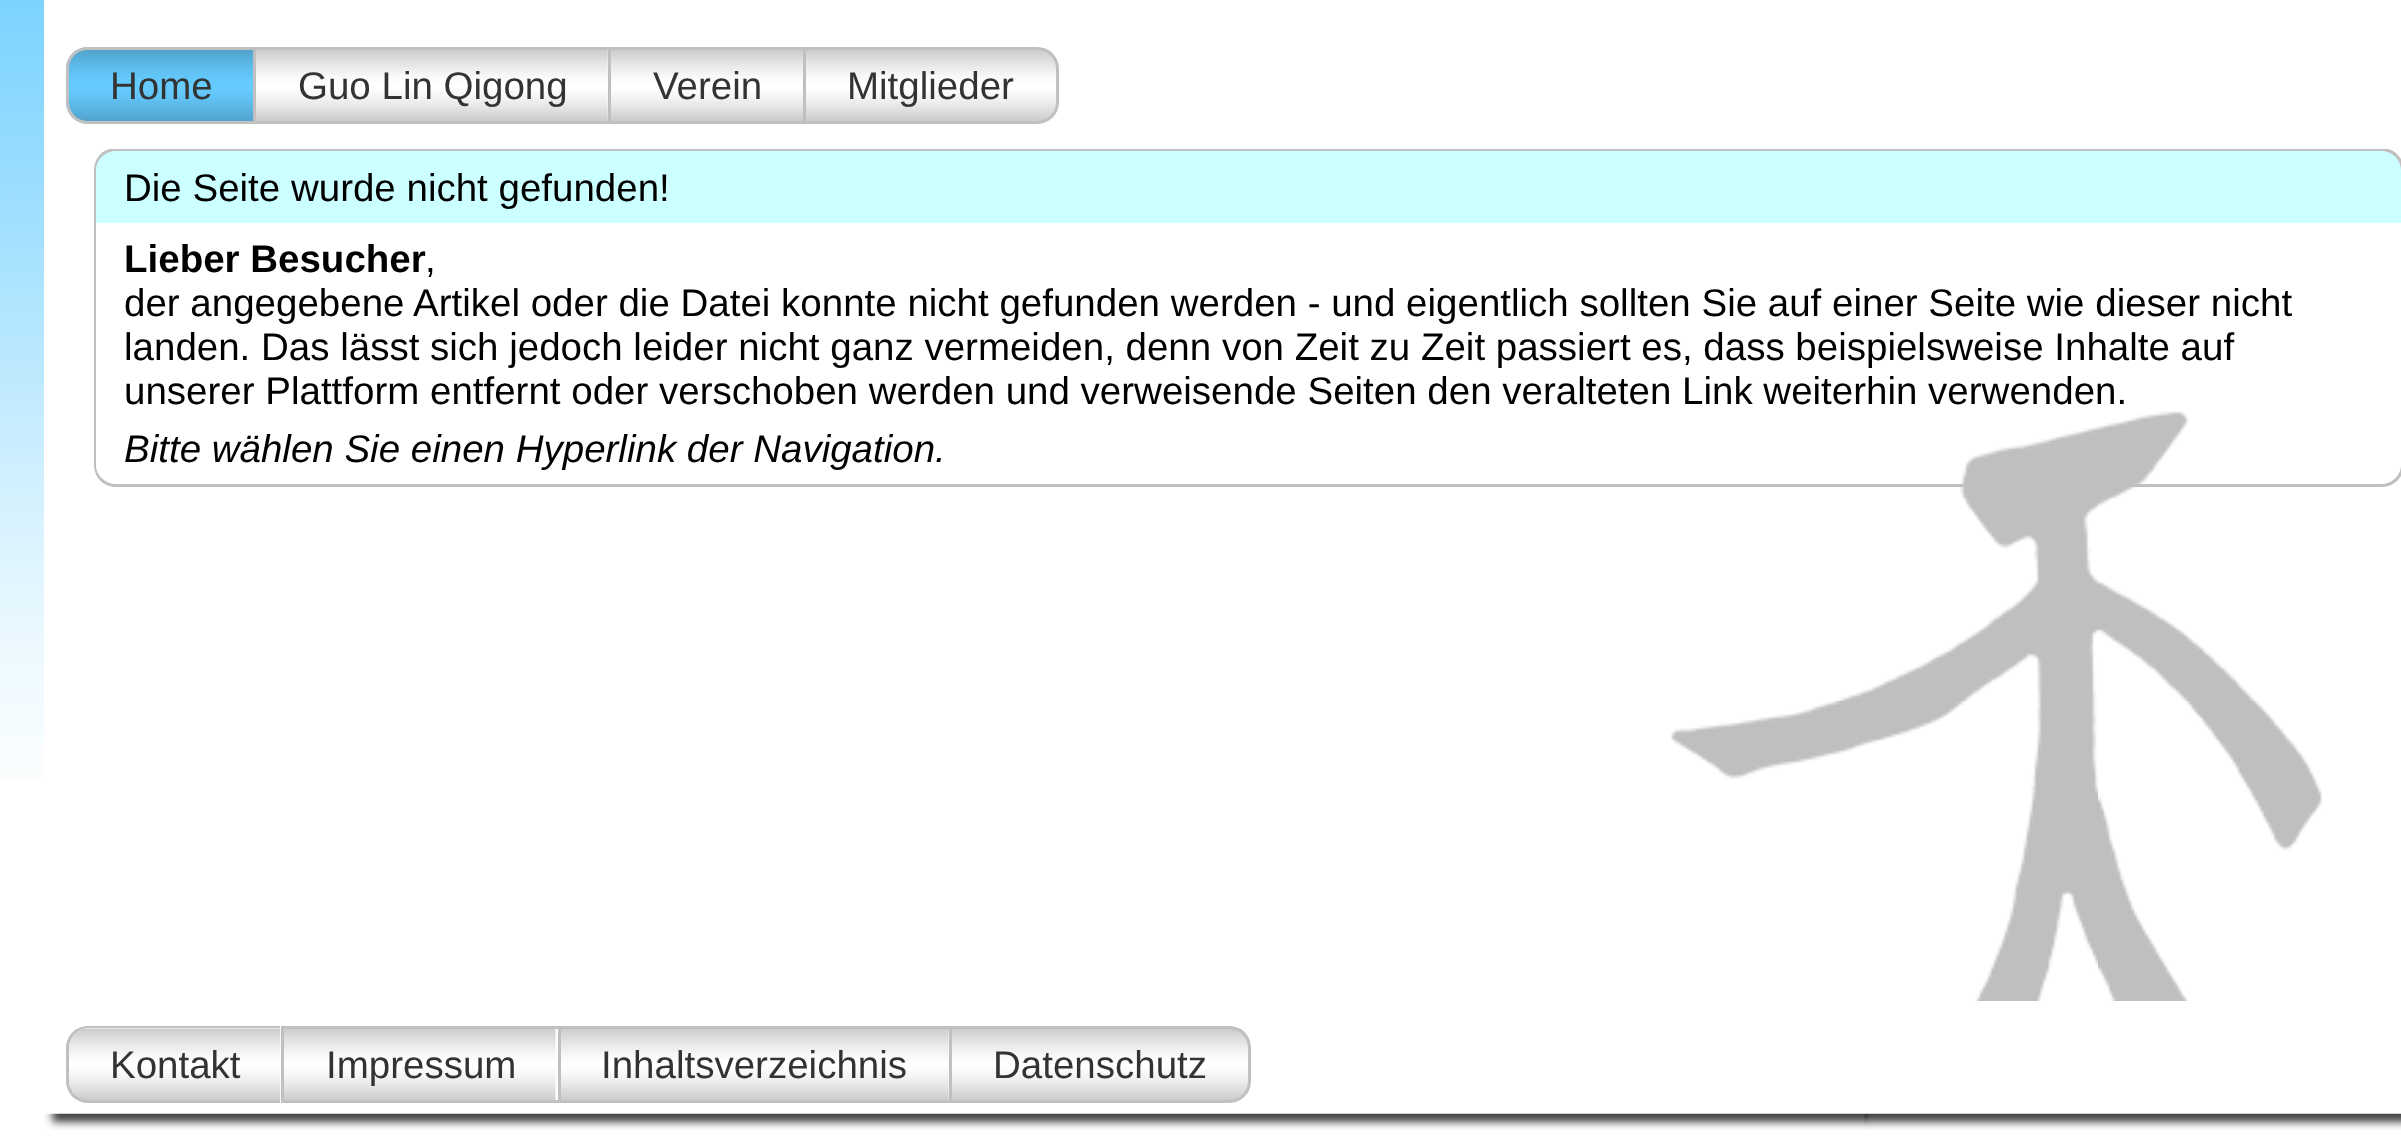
<svg xmlns="http://www.w3.org/2000/svg" width="2401" height="1145">
	<defs>
		<clipPath id="clip1"><rect x="66" y="149" width="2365" height="852" /></clipPath>
	</defs>
	<rect width="100%" height="100%" fill="#FFFFFF" />
	<image x="0" y="0" width="44" height="780" href="assets/img1.png" />
	<path d="M88 47H253V124H88C76 124 66 114 66 102V69C66 57 76 47 88 47Z" fill="#66CCFF" />
	<image x="68" y="49" width="185" height="72" href="assets/img2.png" />
	<image x="256" y="50" width="352" height="71" href="assets/img3.png" />
	<image x="611" y="50" width="192" height="71" href="assets/img4.png" />
	<image x="806" y="49" width="250" height="72" href="assets/img5.png" />
	<path d="M88 47H253V124H88C76 124 66 114 66 102V69C66 57 76 47 88 47ZM88 50H253V121H88C77 121 69 112 69 102V69C69 58 77 50 88 50Z" fill="#C0C0C0" fill-rule="evenodd" />
	<g font-family="Liberation Sans" font-size="38.5" fill="#333333">
		<text x="110" y="99">Home</text>
		<text x="298" y="99">Guo Lin Qigong</text>
	</g>
	<rect x="253" y="47" width="550" height="3" fill="#C0C0C0" />
	<rect x="253" y="121" width="550" height="3" fill="#C0C0C0" />
	<rect x="253" y="47" width="3" height="77" fill="#C0C0C0" />
	<text x="653" y="99" font-family="Liberation Sans" font-size="38.5" fill="#333333">Verein</text>
	<rect x="608" y="47" width="3" height="77" fill="#C0C0C0" />
	<path d="M804.5 48.5H1037C1048.5 48.5 1057.5 57.5 1057.5 69V102C1057.5 113.5 1048.5 122.5 1037 122.5H804.5Z" fill="none" stroke="#C0C0C0" stroke-width="3" />
	<text x="847" y="99" font-family="Liberation Sans" font-size="38.5" fill="#333333">Mitglieder</text>
	<image x="1671" y="411" width="651" height="590" href="assets/img6.png" />
	<path d="M116 149H2382C2394 149 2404 159 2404 171V223H94V171C94 159 104 149 116 149Z" fill="#CCFFFF" />
	<g clip-path="url(#clip1)">
		<path d="M116 148H2382C2394 148 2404 158 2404 170V223H94V170C94 158 103 148 116 148ZM116 151H2382C2392 151 2401 160 2401 170V223H96V170C96 160 105 151 116 151Z" fill="#C0C0C0" fill-rule="evenodd" />
	</g>
	<text x="124" y="201" font-family="Liberation Sans" font-size="38.5" fill="#000000">Die Seite wurde nicht gefunden!</text>
	<path d="M94 223H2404V465C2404 477 2394 487 2382 487H116C103 487 94 477 94 465ZM96 223H2401V465C2401 475 2392 484 2382 484H116C105 484 96 475 96 465Z" fill="#C0C0C0" fill-rule="evenodd" />
	<text x="124" y="272" font-family="Liberation Sans" font-size="38.5" font-weight="700" fill="#000000">Lieber Besucher</text>
	<g font-family="Liberation Sans" font-size="38.5" fill="#000000">
		<text x="425" y="272">,</text>
		<text x="124" y="316">der angegebene Artikel oder die Datei konnte nicht gefunden werden - und eigentlich sollten Sie auf einer Seite wie dieser nicht</text>
		<text x="124" y="360">landen. Das lässt sich jedoch leider nicht ganz vermeiden, denn von Zeit zu Zeit passiert es, dass beispielsweise Inhalte auf</text>
		<text x="124" y="404">unserer Plattform entfernt oder verschoben werden und verweisende Seiten den veralteten Link weiterhin verwenden.</text>
	</g>
	<text x="124" y="462" font-family="Liberation Sans" font-size="38.5" font-style="italic" fill="#000000">Bitte wählen Sie einen Hyperlink der Navigation.</text>
	<image x="68" y="1028" width="213" height="72" href="assets/img7.png" />
	<image x="284" y="1029" width="272" height="71" href="assets/img8.png" />
	<image x="561" y="1029" width="388" height="71" href="assets/img9.png" />
	<image x="952" y="1028" width="297" height="72" href="assets/img10.png" />
	<path d="M88 1026H280V1103H88C76 1103 66 1093 66 1081V1048C66 1036 76 1026 88 1026ZM88 1028H280V1100H88C77 1100 69 1091 69 1081V1048C69 1037 77 1028 88 1028Z" fill="#C0C0C0" fill-rule="evenodd" />
	<g font-family="Liberation Sans" font-size="38.5" fill="#333333">
		<text x="110" y="1078">Kontakt</text>
		<text x="326" y="1078">Impressum</text>
	</g>
	<rect x="281" y="1026" width="668" height="3" fill="#C0C0C0" />
	<rect x="281" y="1100" width="668" height="3" fill="#C0C0C0" />
	<rect x="281" y="1026" width="3" height="77" fill="#C0C0C0" />
	<text x="601" y="1078" font-family="Liberation Sans" font-size="38.5" fill="#333333">Inhaltsverzeichnis</text>
	<rect x="558" y="1026" width="3" height="77" fill="#C0C0C0" />
	<path d="M950.5 1027.5H1229C1240.5 1027.5 1249.5 1036.5 1249.5 1048V1081C1249.5 1092.5 1240.5 1101.5 1229 1101.5H950.5Z" fill="none" stroke="#C0C0C0" stroke-width="3" />
	<text x="993" y="1078" font-family="Liberation Sans" font-size="38.5" fill="#333333">Datenschutz</text>
	<image x="44" y="1113" width="2357" height="17" href="assets/img11.png" />
</svg>
